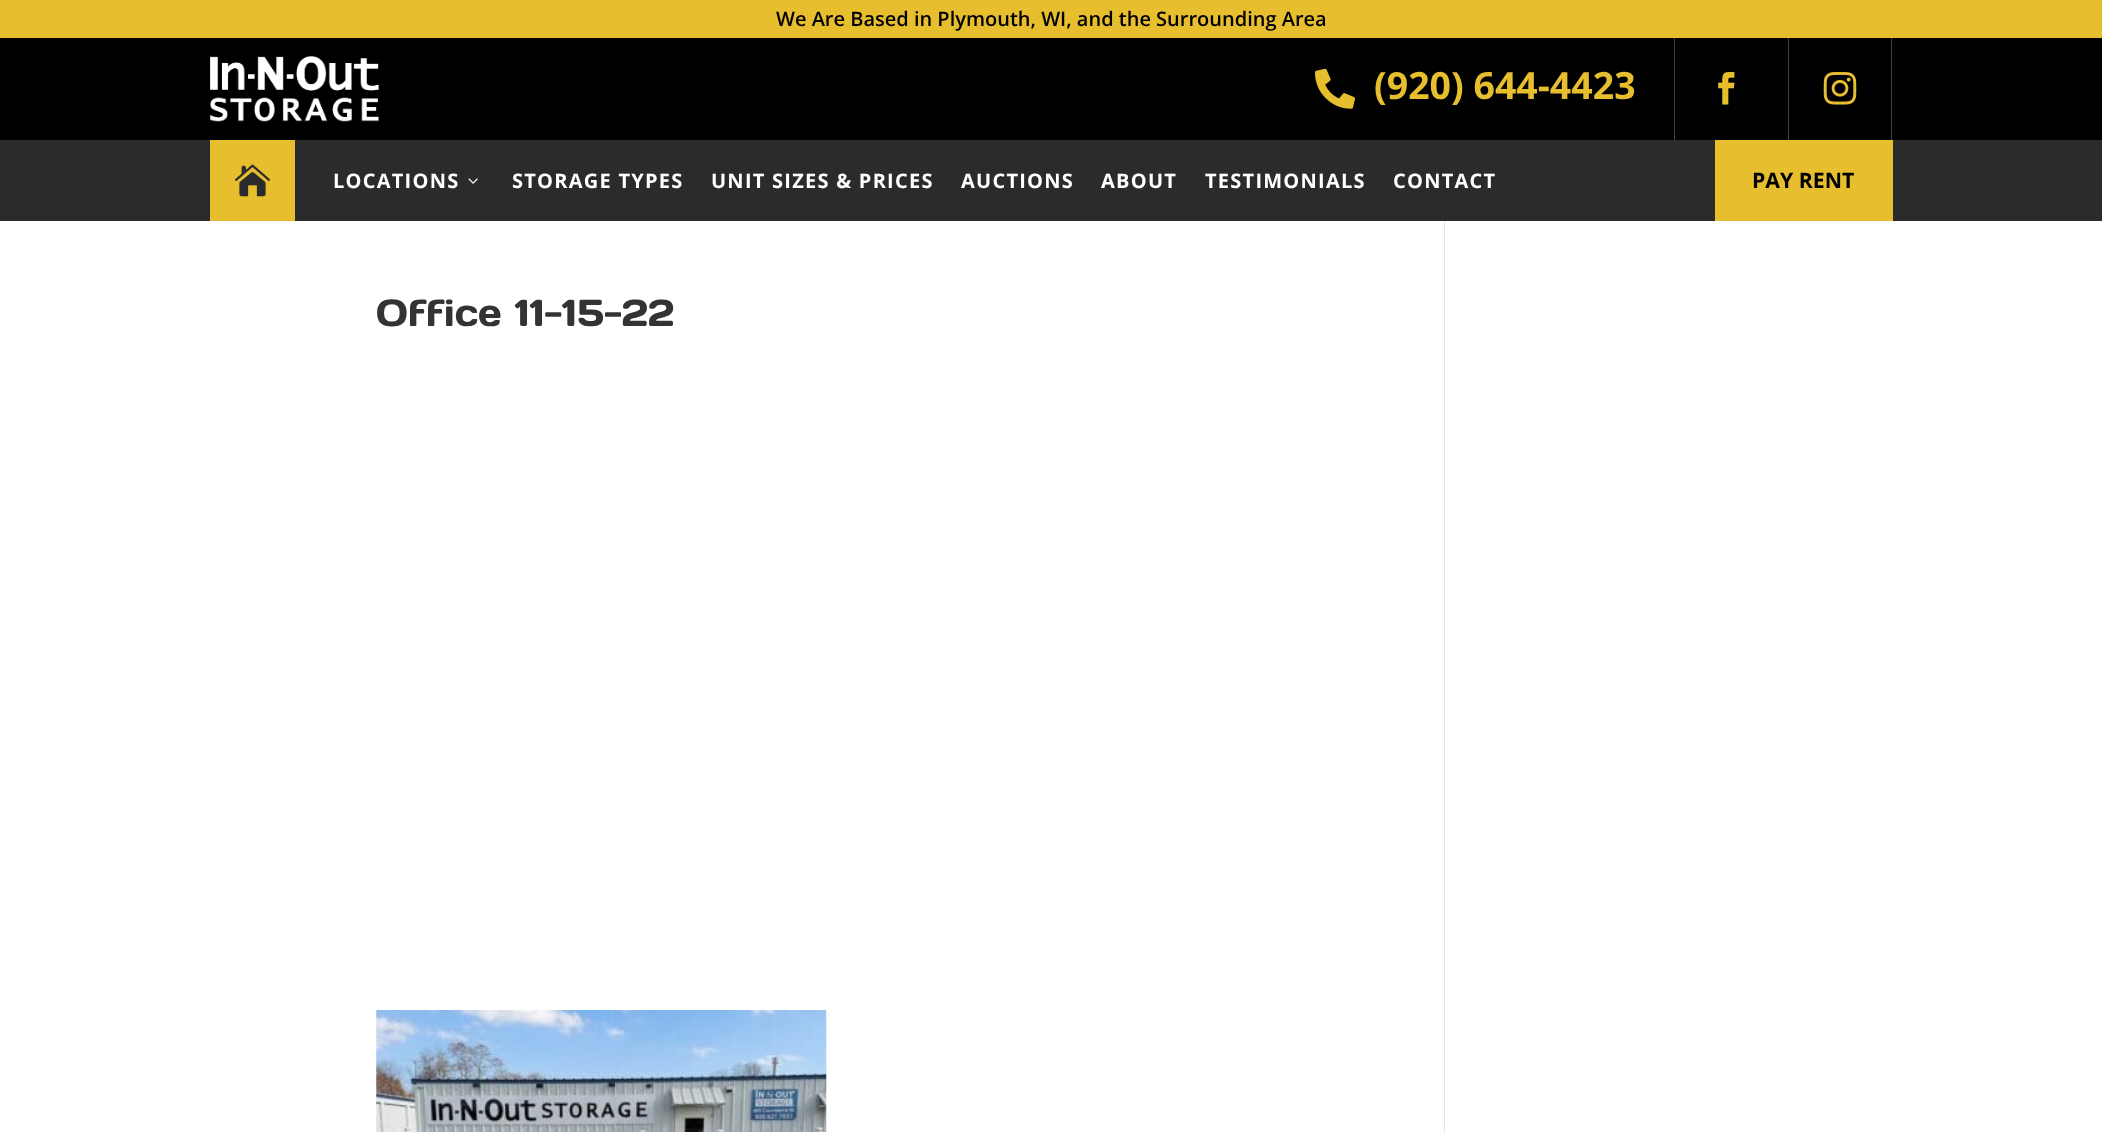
<svg xmlns="http://www.w3.org/2000/svg" width="2102" height="1132">
	<rect width="100%" height="100%" fill="#FFFFFF" />
	<rect x="0" y="0" width="2102" height="38" fill="#E6BE2E" />
	<text x="776" y="26" font-family="Open Sans" font-size="20" font-weight="600" fill="#000000">We Are Based in Plymouth, WI, and the Surrounding Area</text>
	<rect x="0" y="38" width="2102" height="102" fill="#000000" />
	<image x="210" y="56" width="169" height="66" href="assets/img1.png" />
	<image x="1315" y="68" width="40" height="41" href="assets/img2.png" />
	<text x="1374" y="99" font-family="Open Sans" font-size="37.5" font-weight="700" fill="#E6BE2E">(920) 644-4423</text>
	<rect x="1788" y="38" width="1" height="102" fill="#404040" />
	<rect x="1674" y="38" width="1" height="102" fill="#404040" />
	<image x="1718" y="72" width="17" height="33" href="assets/img3.png" />
	<rect x="1891" y="38" width="1" height="102" fill="#404040" />
	<image x="1823" y="72" width="34" height="33" href="assets/img4.png" />
	<rect x="0" y="140" width="2102" height="81" fill="#2B2B2B" />
	<rect x="210" y="140" width="85" height="81" fill="#E6BE2E" />
	<image x="235" y="164" width="35" height="33" href="assets/img5.png" />
	<text x="333" y="188" font-family="Open Sans" font-size="20" font-weight="700" letter-spacing="1.25" fill="#FFFFFF">LOCATIONS</text>
	<image x="468" y="178" width="10" height="6" href="assets/img6.png" />
	<g font-family="Open Sans" font-size="20" font-weight="700" letter-spacing="1.25" fill="#FFFFFF">
		<text x="512" y="188">STORAGE TYPES</text>
		<text x="711" y="188">UNIT SIZES &amp; PRICES</text>
		<text x="961" y="188">AUCTIONS</text>
		<text x="1101" y="188">ABOUT</text>
		<text x="1205" y="188">TESTIMONIALS</text>
		<text x="1393" y="188">CONTACT</text>
	</g>
	<rect x="1715" y="140" width="178" height="81" fill="#E6BE2E" />
	<text x="1752" y="188" font-family="Open Sans" font-size="21.25" font-weight="700" fill="#000000">PAY RENT</text>
	<text x="376" y="326" font-family="Days One" font-size="37.5" fill="#333333">Office 11-15-22</text>
	<image x="376" y="1010" width="451" height="122" href="assets/img7.png" />
	<rect x="1444" y="221" width="1" height="911" fill="#E2E2E2" />
</svg>
